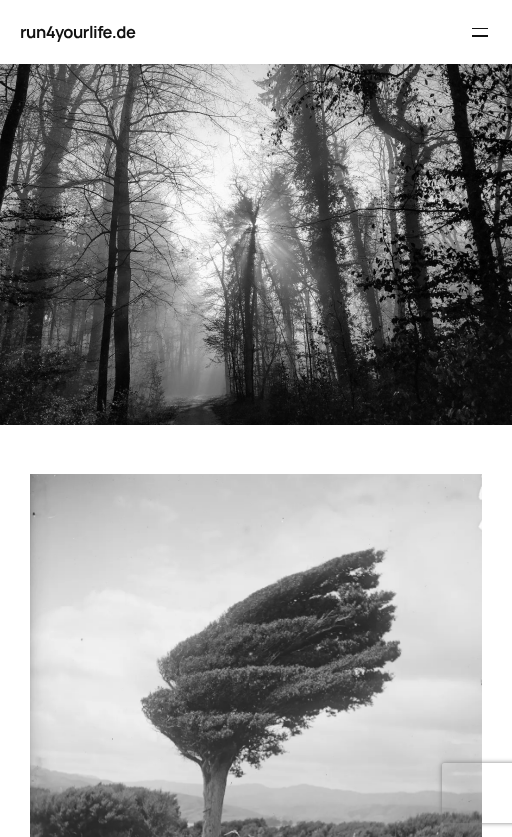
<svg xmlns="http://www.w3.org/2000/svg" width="512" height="837">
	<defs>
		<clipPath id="clip1"><path d="M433 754H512V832H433ZM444 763H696C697 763 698 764 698 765V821C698 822 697 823 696 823H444C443 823 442 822 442 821V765C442 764 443 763 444 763Z" clip-rule="evenodd" /></clipPath>
	</defs>
	<rect width="100%" height="100%" fill="#FFFFFF" />
	<text x="20" y="38" font-family="Manrope" font-size="16.5" font-weight="700" letter-spacing="-0.5" fill="#111111">run4yourlife.de</text>
	<rect x="472" y="28" width="16" height="1" fill="#111111" />
	<rect x="472" y="35" width="16" height="2" fill="#111111" />
	<image x="0" y="64" width="512" height="361" href="assets/img1.png" />
	<image x="30" y="474" width="452" height="363" href="assets/img2.png" />
	<g clip-path="url(#clip1)">
		<rect x="442" y="763" width="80" height="60" rx="2" fill="#808080" filter="blur(2.5px)" />
	</g>
</svg>
